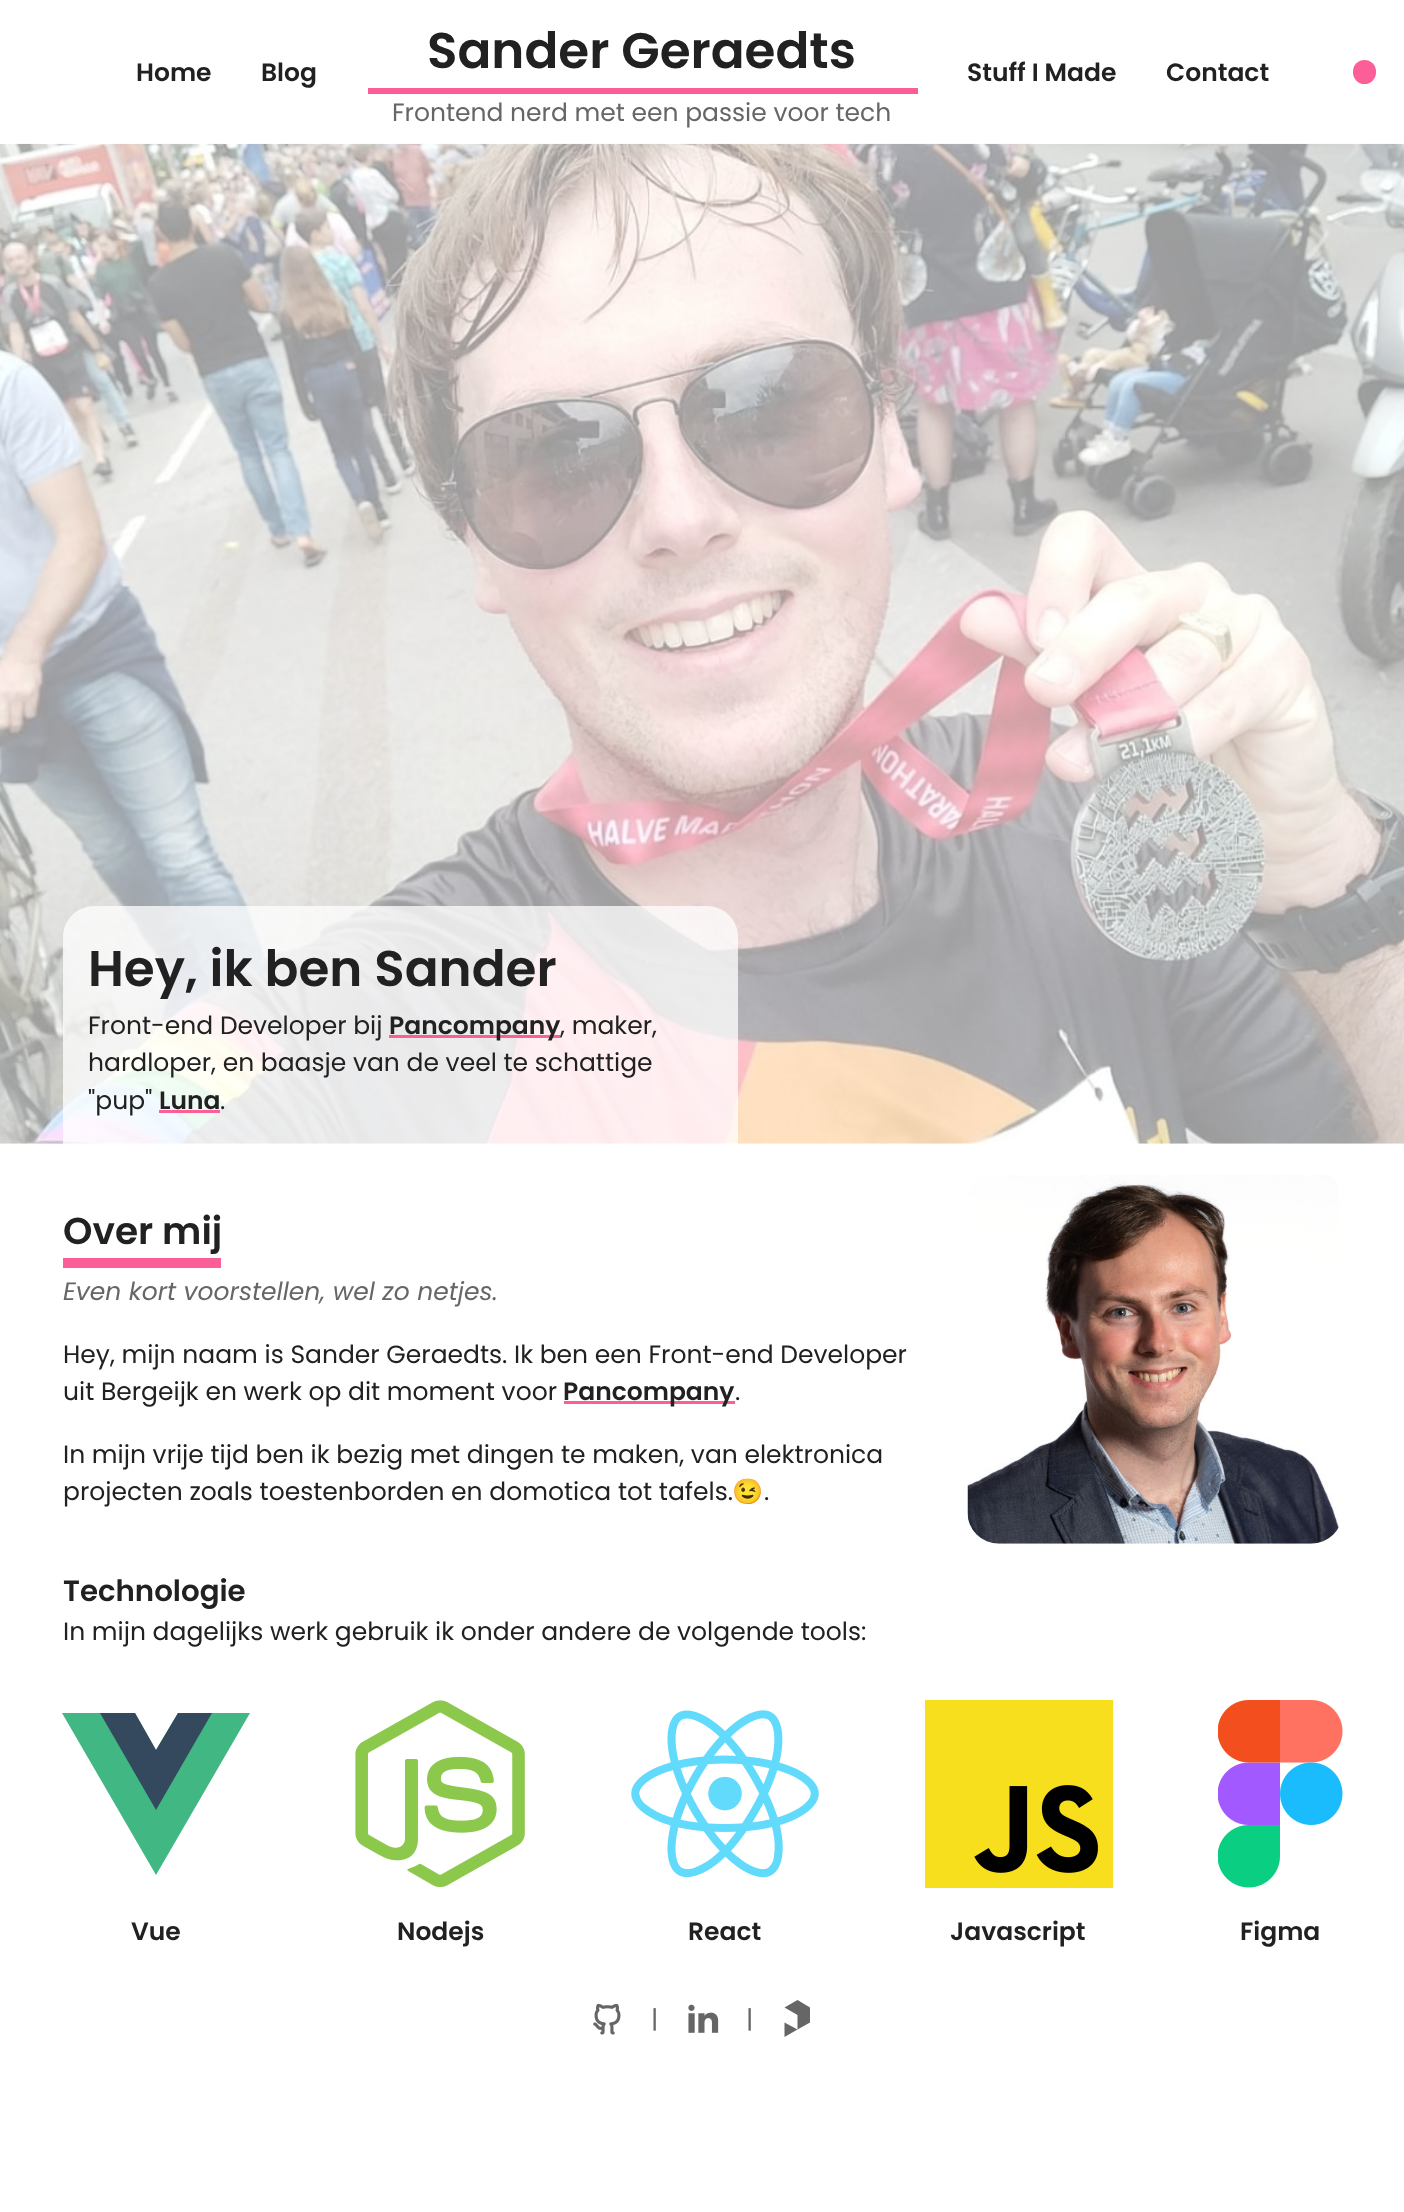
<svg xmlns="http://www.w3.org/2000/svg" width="1404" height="2212">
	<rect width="100%" height="100%" fill="#FFFFFF" />
	<g font-family="Poppins" font-size="25" font-weight="600" fill="#212121">
		<text x="136" y="81">Home</text>
		<text x="261" y="81">Blog</text>
	</g>
	<text x="427" y="68" font-family="Poppins" font-size="50" font-weight="600" fill="#212121">Sander Geraedts</text>
	<rect x="368" y="88" width="550" height="6" fill="#FC5E97" />
	<text x="392" y="121" font-family="Poppins" font-size="25" fill="#666666">Frontend nerd met een passie voor tech</text>
	<g font-family="Poppins" font-size="25" font-weight="600" fill="#212121">
		<text x="967" y="81">Stuff I Made</text>
		<text x="1166" y="81">Contact</text>
	</g>
	<rect x="1353" y="60" width="23" height="24" rx="11.5" fill="#FC5E97" />
	<image x="0" y="143" width="1404" height="1001" href="assets/img1.png" />
	<path d="M94 906H707C724 906 738 920 738 937V1144H63V937C63 920 77 906 94 906Z" fill="#FFFFFF" fill-opacity="0.75" />
	<text x="88" y="986" font-family="Poppins" font-size="50" font-weight="600" fill="#212121">Hey, ik ben Sander</text>
	<text x="88" y="1034" font-family="Poppins" font-size="25" fill="#212121">Front-end Developer bij</text>
	<rect x="389" y="1035" width="171" height="3" fill="#FC5E97" />
	<text x="389" y="1034" font-family="Poppins" font-size="25" font-weight="600" fill="#212121">Pancompany</text>
	<g font-family="Poppins" font-size="25" fill="#212121">
		<text x="560" y="1034">, maker,</text>
		<text x="88" y="1071">hardloper, en baasje van de veel te schattige</text>
		<text x="88" y="1109">"pup"</text>
	</g>
	<text x="159" y="1109" font-family="Poppins" font-size="25" font-weight="600" fill="#212121">Luna</text>
	<rect x="159" y="1110" width="61" height="3" fill="#FC5E97" />
	<text x="220" y="1109" font-family="Poppins" font-size="25" fill="#212121">.</text>
	<text x="63" y="1244" font-family="Poppins" font-size="37.5" font-weight="600" fill="#212121">Over mij</text>
	<rect x="63" y="1258" width="158" height="10" fill="#FC5E97" />
	<text x="63" y="1300" font-family="Poppins" font-size="25" font-style="italic" fill="#666666">Even kort voorstellen, wel zo netjes.</text>
	<g font-family="Poppins" font-size="25" fill="#212121">
		<text x="63" y="1363">Hey, mijn naam is Sander Geraedts. Ik ben een Front-end Developer</text>
		<text x="63" y="1400">uit Bergeijk en werk op dit moment voor</text>
	</g>
	<rect x="564" y="1401" width="171" height="3" fill="#FC5E97" />
	<text x="563" y="1400" font-family="Poppins" font-size="25" font-weight="600" fill="#212121">Pancompany</text>
	<g font-family="Poppins" font-size="25" fill="#212121">
		<text x="735" y="1400">.</text>
		<text x="63" y="1463">In mijn vrije tijd ben ik bezig met dingen te maken, van elektronica</text>
		<text x="63" y="1500">projecten zoals toestenborden en domotica tot tafels.</text>
	</g>
	<text x="732" y="1500" font-family="Noto Color Emoji" font-size="25" fill="#212121">😉</text>
	<text x="764" y="1500" font-family="Poppins" font-size="25" fill="#212121">.</text>
	<image x="967" y="1175" width="372" height="369" href="assets/img2.png" />
	<text x="63" y="1601" font-family="Poppins" font-size="29.25" font-weight="600" fill="#212121">Technologie</text>
	<text x="63" y="1640" font-family="Poppins" font-size="25" fill="#212121">In mijn dagelijks werk gebruik ik onder andere de volgende tools:</text>
	<path d="M178 1713L156 1750L135 1713H62L156 1875L250 1713Z" fill="#41B883" />
	<path d="M178 1713L156 1750L135 1713H100L156 1810L212 1713Z" fill="#34495E" />
	<text x="131" y="1940" font-family="Poppins" font-size="25" font-weight="600" fill="#212121">Vue</text>
	<image x="355" y="1700" width="170" height="188" href="assets/img3.png" />
	<text x="397" y="1940" font-family="Poppins" font-size="25" font-weight="600" fill="#212121">Nodejs</text>
	<image x="631" y="1710" width="188" height="168" href="assets/img4.png" />
	<text x="688" y="1940" font-family="Poppins" font-size="25" font-weight="600" fill="#212121">React</text>
	<image x="925" y="1700" width="188" height="188" href="assets/img5.png" />
	<text x="950" y="1940" font-family="Poppins" font-size="25" font-weight="600" fill="#212121">Javascript</text>
	<image x="1218" y="1700" width="125" height="188" href="assets/img6.png" />
	<text x="1240" y="1940" font-family="Poppins" font-size="25" font-weight="600" fill="#212121">Figma</text>
	<image x="593" y="2003" width="28" height="32" href="assets/img7.png" />
	<text x="651" y="2028" font-family="Poppins" font-size="25" fill="#666666">|</text>
	<image x="688" y="2004" width="31" height="29" href="assets/img8.png" />
	<text x="746" y="2028" font-family="Poppins" font-size="25" fill="#666666">|</text>
	<path d="M784.5 2037L797.5 2029.5L784.5 2022.5ZM797.5 2000L784.5 2007.5L797.5 2015V2029.5L810 2022.5V2007.5Z" fill="#666666" />
</svg>
